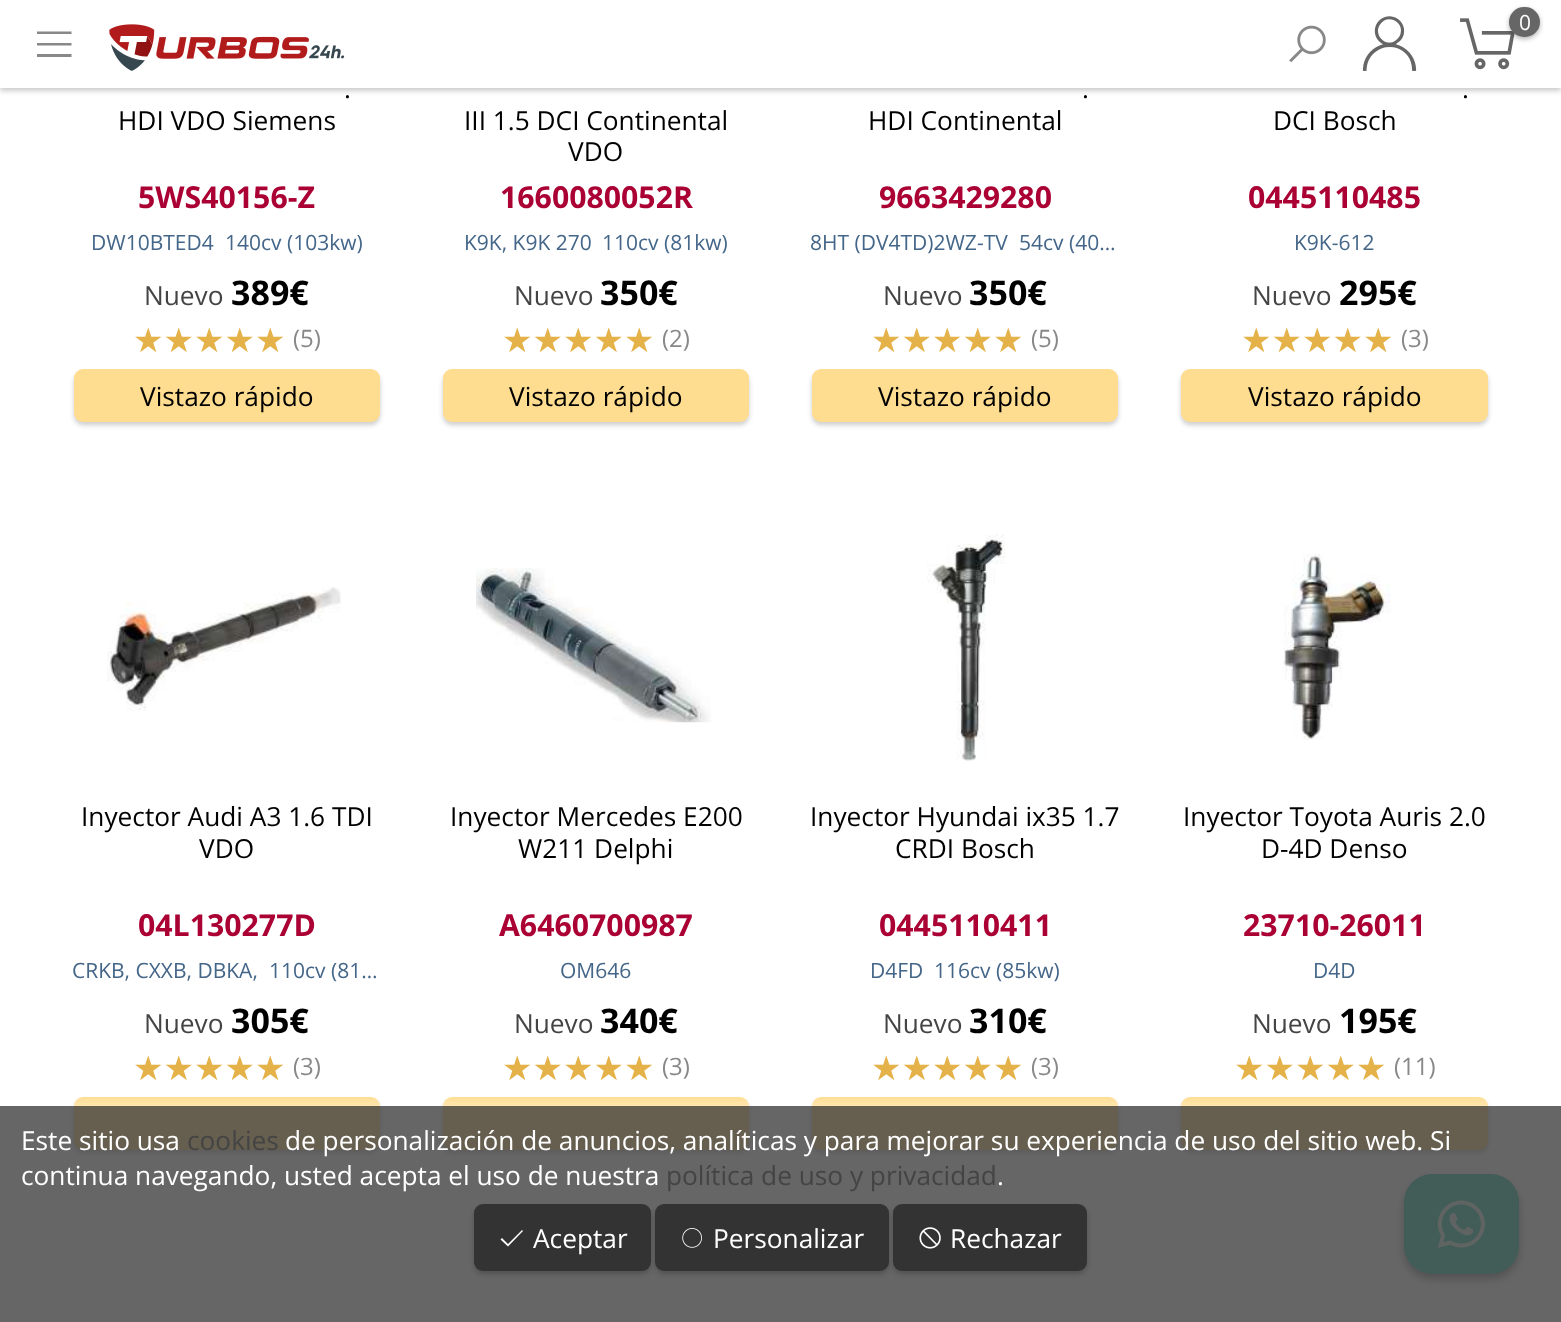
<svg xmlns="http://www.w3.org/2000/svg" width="1561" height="1322">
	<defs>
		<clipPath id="clip1"><rect x="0" y="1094" width="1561" height="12" /></clipPath>
	</defs>
	<rect width="100%" height="100%" fill="#FFFFFF" />
	<rect x="0" y="4" width="1561" height="87" fill="#000000" fill-opacity="0.2" filter="blur(2.5px)" />
	<rect x="0" y="0" width="1561" height="88" fill="#FFFFFF" />
	<path d="M37 31.5V34H71.5V31.5ZM37 43V45.5H71.5V43ZM37 54V57H71.5V54Z" fill="#888888" />
	<image x="109" y="24" width="236" height="47" href="assets/img1.png" />
	<image x="1289" y="25" width="37" height="38" href="assets/img2.png" />
	<image x="1362" y="16" width="55" height="55" href="assets/img3.png" />
	<image x="1460" y="18" width="55" height="52" href="assets/img4.png" />
	<rect x="1509" y="9" width="31" height="30" rx="15" fill="#000000" fill-opacity="0.3" filter="blur(2.5px)" />
	<rect x="1509" y="7" width="31" height="30" rx="15" fill="#666666" />
	<text x="1519" y="30" font-family="Open Sans" font-size="21" fill="#FFFFFF">0</text>
	<g font-family="Open Sans" font-size="26.25" fill="#000000">
		<text x="344" y="98">.</text>
		<text x="118" y="130">HDI VDO Siemens</text>
	</g>
	<text x="138" y="208" font-family="Open Sans" font-size="30.25" font-weight="700" fill="#AA0033">5WS40156-Z</text>
	<g font-family="Open Sans" font-size="21" fill="#446688">
		<text x="91" y="250">DW10BTED4</text>
		<text x="225" y="250">140cv (103kw)</text>
	</g>
	<text x="144" y="305" font-family="Open Sans" font-size="26.25" fill="#444444">Nuevo</text>
	<text x="231" y="305" font-family="Open Sans" font-size="34" font-weight="700" fill="#000000">389€</text>
	<text x="133" y="352" font-family="DejaVu Sans" font-size="34" fill="#E4B248">★★★★★</text>
	<text x="293" y="347" font-family="Open Sans" font-size="24" fill="#888888">(5)</text>
	<rect x="74" y="373" width="306" height="52" rx="9" fill="#000000" fill-opacity="0.2" filter="blur(2.5px)" />
	<rect x="74" y="369" width="306" height="53" rx="9" fill="#FFDD90" />
	<g font-family="Open Sans" font-size="26.25" fill="#000000">
		<text x="140" y="406">Vistazo rápido</text>
		<text x="464" y="130">III 1.5 DCI Continental</text>
		<text x="568" y="161">VDO</text>
	</g>
	<text x="500" y="208" font-family="Open Sans" font-size="30.25" font-weight="700" fill="#AA0033">1660080052R</text>
	<g font-family="Open Sans" font-size="21" fill="#446688">
		<text x="464" y="250">K9K, K9K 270</text>
		<text x="602" y="250">110cv (81kw)</text>
	</g>
	<text x="514" y="305" font-family="Open Sans" font-size="26.25" fill="#444444">Nuevo</text>
	<text x="600" y="305" font-family="Open Sans" font-size="34" font-weight="700" fill="#000000">350€</text>
	<text x="502" y="352" font-family="DejaVu Sans" font-size="34" fill="#E4B248">★★★★★</text>
	<text x="662" y="347" font-family="Open Sans" font-size="24" fill="#888888">(2)</text>
	<rect x="443" y="373" width="306" height="52" rx="9" fill="#000000" fill-opacity="0.2" filter="blur(2.5px)" />
	<rect x="443" y="369" width="306" height="53" rx="9" fill="#FFDD90" />
	<g font-family="Open Sans" font-size="26.25" fill="#000000">
		<text x="509" y="406">Vistazo rápido</text>
		<text x="1082" y="98">.</text>
		<text x="868" y="130">HDI Continental</text>
	</g>
	<text x="879" y="208" font-family="Open Sans" font-size="30.25" font-weight="700" fill="#AA0033">9663429280</text>
	<g font-family="Open Sans" font-size="21" fill="#446688">
		<text x="810" y="250">8HT (DV4TD)2WZ-TV</text>
		<text x="1019" y="250">54cv (40…</text>
	</g>
	<text x="883" y="305" font-family="Open Sans" font-size="26.25" fill="#444444">Nuevo</text>
	<text x="969" y="305" font-family="Open Sans" font-size="34" font-weight="700" fill="#000000">350€</text>
	<text x="871" y="352" font-family="DejaVu Sans" font-size="34" fill="#E4B248">★★★★★</text>
	<text x="1031" y="347" font-family="Open Sans" font-size="24" fill="#888888">(5)</text>
	<rect x="812" y="373" width="306" height="52" rx="9" fill="#000000" fill-opacity="0.2" filter="blur(2.5px)" />
	<rect x="812" y="369" width="306" height="53" rx="9" fill="#FFDD90" />
	<g font-family="Open Sans" font-size="26.25" fill="#000000">
		<text x="878" y="406">Vistazo rápido</text>
		<text x="1462" y="98">.</text>
		<text x="1273" y="130">DCI Bosch</text>
	</g>
	<text x="1248" y="208" font-family="Open Sans" font-size="30.25" font-weight="700" fill="#AA0033">0445110485</text>
	<text x="1294" y="250" font-family="Open Sans" font-size="21" fill="#446688">K9K-612</text>
	<text x="1252" y="305" font-family="Open Sans" font-size="26.25" fill="#444444">Nuevo</text>
	<text x="1339" y="305" font-family="Open Sans" font-size="34" font-weight="700" fill="#000000">295€</text>
	<text x="1241" y="352" font-family="DejaVu Sans" font-size="34" fill="#E4B248">★★★★★</text>
	<text x="1401" y="347" font-family="Open Sans" font-size="24" fill="#888888">(3)</text>
	<rect x="1181" y="373" width="307" height="52" rx="9" fill="#000000" fill-opacity="0.2" filter="blur(2.5px)" />
	<rect x="1181" y="369" width="307" height="53" rx="9" fill="#FFDD90" />
	<text x="1248" y="406" font-family="Open Sans" font-size="26.25" fill="#000000">Vistazo rápido</text>
	<image x="107" y="587" width="234" height="124" href="assets/img5.png" />
	<g font-family="Open Sans" font-size="26.25" fill="#000000">
		<text x="81" y="826">Inyector Audi A3 1.6 TDI</text>
		<text x="199" y="858">VDO</text>
	</g>
	<text x="138" y="936" font-family="Open Sans" font-size="30.25" font-weight="700" fill="#AA0033">04L130277D</text>
	<g font-family="Open Sans" font-size="21" fill="#446688">
		<text x="72" y="978">CRKB, CXXB, DBKA,</text>
		<text x="269" y="978">110cv (81…</text>
	</g>
	<text x="144" y="1033" font-family="Open Sans" font-size="26.25" fill="#444444">Nuevo</text>
	<text x="231" y="1033" font-family="Open Sans" font-size="34" font-weight="700" fill="#000000">305€</text>
	<text x="133" y="1080" font-family="DejaVu Sans" font-size="34" fill="#E4B248">★★★★★</text>
	<text x="293" y="1075" font-family="Open Sans" font-size="24" fill="#888888">(3)</text>
	<rect x="74" y="1101" width="306" height="52" rx="9" fill="#000000" fill-opacity="0.2" filter="blur(2.5px)" />
	<rect x="74" y="1097" width="306" height="53" rx="9" fill="#FFDD90" />
	<image x="476" y="568" width="235" height="155" href="assets/img6.png" />
	<g font-family="Open Sans" font-size="26.25" fill="#000000">
		<text x="450" y="826">Inyector Mercedes E200</text>
		<text x="518" y="858">W211 Delphi</text>
	</g>
	<text x="499" y="936" font-family="Open Sans" font-size="30.25" font-weight="700" fill="#AA0033">A6460700987</text>
	<text x="560" y="978" font-family="Open Sans" font-size="21" fill="#446688">OM646</text>
	<text x="514" y="1033" font-family="Open Sans" font-size="26.25" fill="#444444">Nuevo</text>
	<text x="600" y="1033" font-family="Open Sans" font-size="34" font-weight="700" fill="#000000">340€</text>
	<text x="502" y="1080" font-family="DejaVu Sans" font-size="34" fill="#E4B248">★★★★★</text>
	<text x="662" y="1075" font-family="Open Sans" font-size="24" fill="#888888">(3)</text>
	<rect x="443" y="1101" width="306" height="52" rx="9" fill="#000000" fill-opacity="0.2" filter="blur(2.5px)" />
	<rect x="443" y="1097" width="306" height="53" rx="9" fill="#FFDD90" />
	<image x="927" y="534" width="79" height="227" href="assets/img7.png" />
	<g font-family="Open Sans" font-size="26.25" fill="#000000">
		<text x="810" y="826">Inyector Hyundai ix35 1.7</text>
		<text x="895" y="858">CRDI Bosch</text>
	</g>
	<text x="879" y="936" font-family="Open Sans" font-size="30.25" font-weight="700" fill="#AA0033">0445110411</text>
	<g font-family="Open Sans" font-size="21" fill="#446688">
		<text x="870" y="978">D4FD</text>
		<text x="934" y="978">116cv (85kw)</text>
	</g>
	<text x="883" y="1033" font-family="Open Sans" font-size="26.25" fill="#444444">Nuevo</text>
	<text x="969" y="1033" font-family="Open Sans" font-size="34" font-weight="700" fill="#000000">310€</text>
	<text x="871" y="1080" font-family="DejaVu Sans" font-size="34" fill="#E4B248">★★★★★</text>
	<text x="1031" y="1075" font-family="Open Sans" font-size="24" fill="#888888">(3)</text>
	<rect x="812" y="1101" width="306" height="52" rx="9" fill="#000000" fill-opacity="0.2" filter="blur(2.5px)" />
	<rect x="812" y="1097" width="306" height="53" rx="9" fill="#FFDD90" />
	<image x="1283" y="554" width="108" height="186" href="assets/img8.png" />
	<g font-family="Open Sans" font-size="26.25" fill="#000000">
		<text x="1183" y="826">Inyector Toyota Auris 2.0</text>
		<text x="1261" y="858">D-4D Denso</text>
	</g>
	<text x="1243" y="936" font-family="Open Sans" font-size="30.25" font-weight="700" fill="#AA0033">23710-26011</text>
	<text x="1313" y="978" font-family="Open Sans" font-size="21" fill="#446688">D4D</text>
	<text x="1252" y="1033" font-family="Open Sans" font-size="26.25" fill="#444444">Nuevo</text>
	<text x="1339" y="1033" font-family="Open Sans" font-size="34" font-weight="700" fill="#000000">195€</text>
	<text x="1234" y="1080" font-family="DejaVu Sans" font-size="34" fill="#E4B248">★★★★★</text>
	<text x="1394" y="1075" font-family="Open Sans" font-size="24" fill="#888888">(11)</text>
	<rect x="1181" y="1101" width="307" height="52" rx="9" fill="#000000" fill-opacity="0.2" filter="blur(2.5px)" />
	<rect x="1181" y="1097" width="307" height="53" rx="9" fill="#FFDD90" />
	<rect x="1404" y="1180" width="115" height="99" rx="28" fill="#333333" fill-opacity="0.5" filter="blur(4.5px)" />
	<rect x="1404" y="1174" width="115" height="100" rx="28" fill="#4CCAB6" />
	<image x="1437" y="1200" width="48" height="48" href="assets/img9.png" />
	<g clip-path="url(#clip1)">
		<rect x="4" y="1101" width="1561" height="217" fill="#FFFFFF" fill-opacity="0.3" filter="blur(4.5px)" />
	</g>
	<rect x="0" y="1106" width="1561" height="216" fill="#404040" fill-opacity="0.8" />
	<text x="21" y="1150" font-family="Open Sans" font-size="26.25" fill="#FFFFFF">Este sitio usa</text>
	<text x="187" y="1150" font-family="Open Sans" font-size="26.25" fill="#444444">cookies</text>
	<g font-family="Open Sans" font-size="26.25" fill="#FFFFFF">
		<text x="285" y="1150">de personalización de anuncios, analíticas y para mejorar su experiencia de uso del sitio web. Si</text>
		<text x="21" y="1185">continua navegando, usted acepta el uso de nuestra</text>
	</g>
	<text x="666" y="1185" font-family="Open Sans" font-size="26.25" fill="#444444">política de uso y privacidad</text>
	<text x="997" y="1185" font-family="Open Sans" font-size="26.25" fill="#FFFFFF">.</text>
	<rect x="474" y="1208" width="177" height="66" rx="9" fill="#000000" fill-opacity="0.2" filter="blur(2.5px)" />
	<rect x="474" y="1204" width="177" height="67" rx="9" fill="#333333" />
	<path d="M522 1230L508 1244L502 1238L500.5 1239.5L508 1246.5L523 1231Z" fill="#FFFFFF" />
	<text x="533" y="1248" font-family="Open Sans" font-size="26.25" fill="#FFFFFF">Aceptar</text>
	<rect x="655" y="1208" width="234" height="66" rx="9" fill="#000000" fill-opacity="0.2" filter="blur(2.5px)" />
	<rect x="655" y="1204" width="234" height="67" rx="9" fill="#333333" />
	<image x="682" y="1228" width="20" height="20" href="assets/img10.png" />
	<text x="713" y="1248" font-family="Open Sans" font-size="26.25" fill="#FFFFFF">Personalizar</text>
	<rect x="893" y="1208" width="194" height="66" rx="9" fill="#000000" fill-opacity="0.2" filter="blur(2.5px)" />
	<rect x="893" y="1204" width="194" height="67" rx="9" fill="#333333" />
	<image x="919" y="1227" width="22" height="22" href="assets/img11.png" />
	<text x="950" y="1248" font-family="Open Sans" font-size="26.25" fill="#FFFFFF">Rechazar</text>
</svg>
